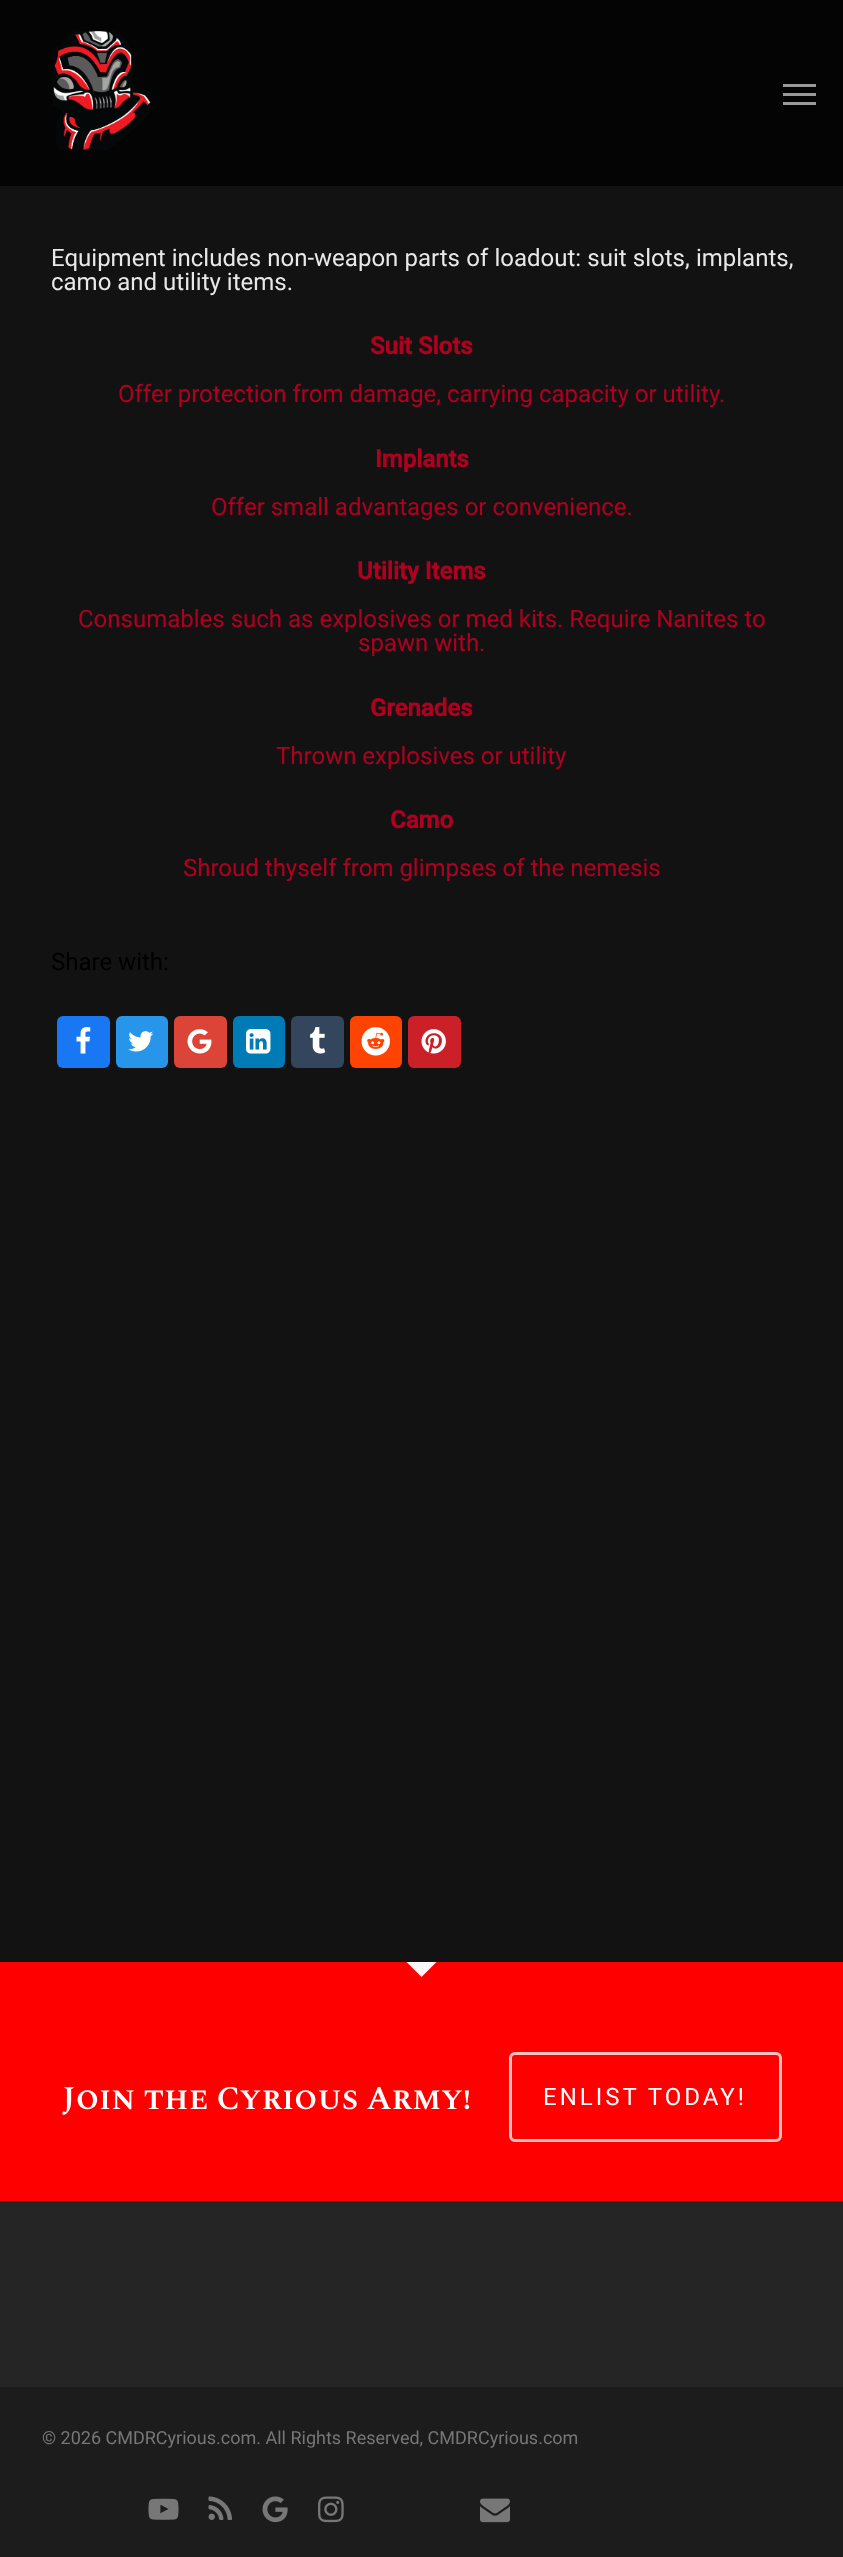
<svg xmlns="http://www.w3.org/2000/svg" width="843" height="2557">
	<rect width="100%" height="100%" fill="#121212" />
	<rect x="0" y="0" width="843" height="186" fill="#040404" />
	<image x="53" y="31" width="98" height="119" href="assets/img1.png" />
	<rect x="783" y="84" width="33" height="3" fill="#999999" />
	<rect x="783" y="102" width="33" height="3" fill="#999999" />
	<rect x="783" y="93" width="33" height="3" fill="#999999" />
	<g font-family="Roboto" font-size="24" fill="#E8E8E8">
		<text x="51" y="266" word-spacing="0.25">Equipment includes non-weapon parts of loadout: suit slots, implants,</text>
		<text x="51" y="290">camo and utility items.</text>
	</g>
	<text x="370" y="354" font-family="Roboto" font-size="24" font-weight="700" fill="#B00020">Suit Slots</text>
	<text x="118" y="402" font-family="Roboto" font-size="24" fill="#B00020">Offer protection from damage, carrying capacity or utility.</text>
	<text x="375" y="467" font-family="Roboto" font-size="24" font-weight="700" fill="#B00020">Implants</text>
	<text x="211" y="515" font-family="Roboto" font-size="24" fill="#B00020">Offer small advantages or convenience.</text>
	<text x="357" y="579" font-family="Roboto" font-size="24" font-weight="700" fill="#B00020">Utility Items</text>
	<g font-family="Roboto" font-size="24" fill="#B00020">
		<text x="78" y="627">Consumables such as explosives or med kits. Require Nanites to</text>
		<text x="358" y="651">spawn with.</text>
	</g>
	<text x="370" y="716" font-family="Roboto" font-size="24" font-weight="700" fill="#B00020">Grenades</text>
	<text x="276" y="764" font-family="Roboto" font-size="24" fill="#B00020">Thrown explosives or utility</text>
	<text x="390" y="828" font-family="Roboto" font-size="24" font-weight="700" fill="#B00020">Camo</text>
	<text x="183" y="876" font-family="Roboto" font-size="24" fill="#B00020">Shroud thyself from glimpses of the nemesis</text>
	<text x="51" y="970" font-family="Roboto" font-size="24" fill="#000000">Share with:</text>
	<rect x="57" y="1016" width="53" height="52" rx="6" fill="#1877F2" />
	<image x="76" y="1027" width="15" height="27" href="assets/img2.png" />
	<rect x="116" y="1016" width="52" height="52" rx="6" fill="#2795E9" />
	<image x="128" y="1031" width="26" height="21" href="assets/img3.png" />
	<rect x="174" y="1016" width="53" height="52" rx="6" fill="#DB4437" />
	<image x="187" y="1029" width="25" height="25" href="assets/img4.png" />
	<rect x="233" y="1016" width="52" height="52" rx="6" fill="#007BB6" />
	<image x="246" y="1029" width="25" height="25" href="assets/img5.png" />
	<rect x="291" y="1016" width="53" height="52" rx="6" fill="#34465D" />
	<image x="310" y="1027" width="16" height="27" href="assets/img6.png" />
	<rect x="350" y="1016" width="52" height="52" rx="6" fill="#FF4301" />
	<image x="361" y="1027" width="29" height="29" href="assets/img7.png" />
	<rect x="408" y="1016" width="53" height="52" rx="6" fill="#CB2027" />
	<image x="421" y="1029" width="25" height="25" href="assets/img8.png" />
	<rect x="0" y="2201" width="843" height="186" fill="#252525" />
	<rect x="0" y="1962" width="843" height="239" fill="#FF0000" />
	<path d="M406.5 1962H436.5L421.5 1977Z" fill="#F8F8F8" />
	<text x="62" y="2109" font-family="Spectral SC" font-size="33" font-weight="600" fill="#FFFFFF">Join the Cyrious Army!</text>
	<rect x="510.5" y="2053.5" width="270" height="87" rx="4.5" fill="none" stroke="#FFBFBF" stroke-width="3" />
	<text x="543" y="2105" font-family="Roboto" font-size="24" letter-spacing="3" fill="#FFFFFF">ENLIST TODAY!</text>
	<rect x="0" y="2387" width="843" height="170" fill="#1C1C1C" />
	<text x="42" y="2444" font-family="Roboto" font-size="18" fill="#777777">© 2026 CMDRCyrious.com. All Rights Reserved, CMDRCyrious.com</text>
	<image x="148" y="2498" width="31" height="22" href="assets/img9.png" />
	<image x="208" y="2496" width="24" height="24" href="assets/img10.png" />
	<image x="262" y="2496" width="26" height="27" href="assets/img11.png" />
	<image x="318" y="2496" width="26" height="27" href="assets/img12.png" />
	<image x="480" y="2498" width="30" height="25" href="assets/img13.png" />
</svg>
